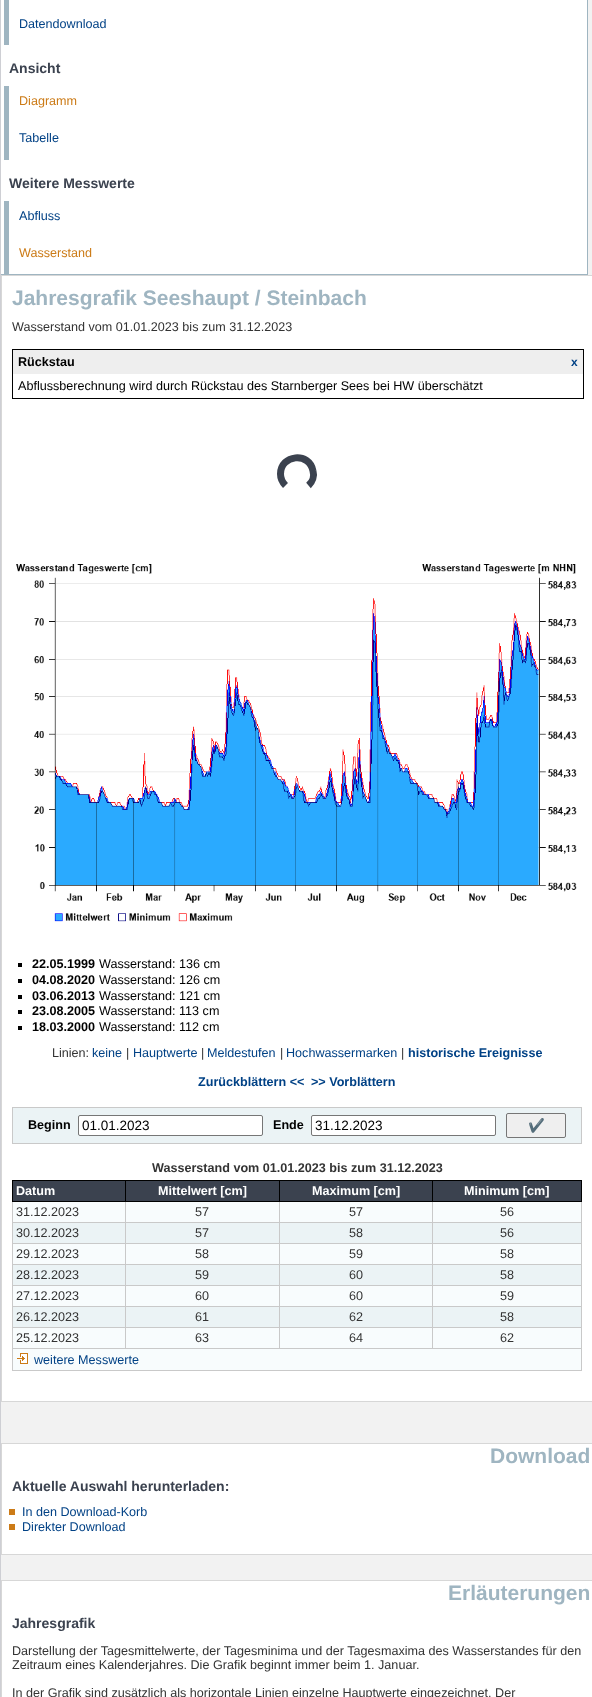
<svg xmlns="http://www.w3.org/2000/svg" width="592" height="1697">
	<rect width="100%" height="100%" fill="#CECFD4" />
	<rect x="1" y="0" width="591" height="1580" fill="#F2F2F2" />
	<rect x="1" y="0" width="586" height="274" fill="#FFFFFF" />
	<rect x="587" y="0" width="1" height="275" fill="#9FB5C1" />
	<rect x="1" y="274" width="587" height="1" fill="#9FB5C1" />
	<rect x="4" y="0" width="5" height="45" fill="#9FB5C1" />
	<text x="19" y="28" font-family="Liberation Sans" font-size="12.6" fill="#004185">Datendownload</text>
	<text x="9" y="73" font-family="Liberation Sans" font-size="14" font-weight="700" fill="#3B424F">Ansicht</text>
	<rect x="4" y="86" width="5" height="74" fill="#9FB5C1" />
	<text x="19" y="105" font-family="Liberation Sans" font-size="12.6" fill="#CC7B17">Diagramm</text>
	<text x="19" y="142" font-family="Liberation Sans" font-size="12.6" fill="#004185">Tabelle</text>
	<text x="9" y="188" font-family="Liberation Sans" font-size="14" font-weight="700" fill="#3B424F">Weitere Messwerte</text>
	<rect x="4" y="201" width="5" height="73" fill="#9FB5C1" />
	<text x="19" y="220" font-family="Liberation Sans" font-size="12.6" fill="#004185">Abfluss</text>
	<text x="19" y="257" font-family="Liberation Sans" font-size="12.6" fill="#CC7B17">Wasserstand</text>
	<rect x="1.5" y="275.5" width="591" height="1126" fill="#FFFFFF" stroke="#D7D7D7" />
	<text x="12" y="305" font-family="Liberation Sans" font-size="21" font-weight="700" fill="#9FB5C1">Jahresgrafik Seeshaupt / Steinbach</text>
	<text x="12" y="331" font-family="Liberation Sans" font-size="12.6" fill="#333333">Wasserstand vom 01.01.2023 bis zum 31.12.2023</text>
	<rect x="12.5" y="349.5" width="571" height="49" fill="none" stroke="#000000" />
	<rect x="13" y="350" width="570" height="24" fill="#EEEEEE" />
	<text x="18" y="366" font-family="Liberation Sans" font-size="12.6" font-weight="700" fill="#000000">Rückstau</text>
	<text x="571" y="366" font-family="Liberation Sans" font-size="12" font-weight="700" fill="#004185">x</text>
	<text x="18" y="390" font-family="Liberation Sans" font-size="12.6" fill="#000000">Abflussberechnung wird durch Rückstau des Starnberger Sees bei HW überschätzt</text>
	<path d="M285.5 485.5C282.5 482.5 280.5 478.5 280.5 474C280.5 454.5 309.5 451.5 313 471C314.5 476 312.5 482 308.5 485.5" fill="none" stroke="#3B424F" stroke-width="7" />
	<image x="16" y="564" width="561" height="358" href="assets/img1.png" />
	<rect x="18" y="963" width="4" height="4" fill="#000000" />
	<text x="32" y="968" font-family="Liberation Sans" font-size="12.6" font-weight="700" fill="#000000">22.05.1999</text>
	<text x="99" y="968" font-family="Liberation Sans" font-size="12.6" fill="#000000">Wasserstand: 136 cm</text>
	<rect x="18" y="979" width="4" height="4" fill="#000000" />
	<text x="32" y="984" font-family="Liberation Sans" font-size="12.6" font-weight="700" fill="#000000">04.08.2020</text>
	<text x="99" y="984" font-family="Liberation Sans" font-size="12.6" fill="#000000">Wasserstand: 126 cm</text>
	<rect x="18" y="995" width="4" height="4" fill="#000000" />
	<text x="32" y="1000" font-family="Liberation Sans" font-size="12.6" font-weight="700" fill="#000000">03.06.2013</text>
	<text x="99" y="1000" font-family="Liberation Sans" font-size="12.6" fill="#000000">Wasserstand: 121 cm</text>
	<rect x="18" y="1010" width="4" height="4" fill="#000000" />
	<text x="32" y="1015" font-family="Liberation Sans" font-size="12.6" font-weight="700" fill="#000000">23.08.2005</text>
	<text x="99" y="1015" font-family="Liberation Sans" font-size="12.6" fill="#000000">Wasserstand: 113 cm</text>
	<rect x="18" y="1026" width="4" height="4" fill="#000000" />
	<text x="32" y="1031" font-family="Liberation Sans" font-size="12.6" font-weight="700" fill="#000000">18.03.2000</text>
	<text x="99" y="1031" font-family="Liberation Sans" font-size="12.6" fill="#000000">Wasserstand: 112 cm</text>
	<text x="52" y="1057" font-family="Liberation Sans" font-size="12.6" fill="#333333">Linien:</text>
	<text x="92" y="1057" font-family="Liberation Sans" font-size="12.6" fill="#004185">keine</text>
	<text x="126" y="1057" font-family="Liberation Sans" font-size="12.6" fill="#333333">|</text>
	<text x="133" y="1057" font-family="Liberation Sans" font-size="12.6" fill="#004185">Hauptwerte</text>
	<text x="201" y="1057" font-family="Liberation Sans" font-size="12.6" fill="#333333">|</text>
	<text x="207" y="1057" font-family="Liberation Sans" font-size="12.6" fill="#004185">Meldestufen</text>
	<text x="280" y="1057" font-family="Liberation Sans" font-size="12.6" fill="#333333">|</text>
	<text x="286" y="1057" font-family="Liberation Sans" font-size="12.6" fill="#004185">Hochwassermarken</text>
	<text x="401" y="1057" font-family="Liberation Sans" font-size="12.6" fill="#333333">|</text>
	<g font-family="Liberation Sans" font-size="12.6" font-weight="700" fill="#004185">
		<text x="408" y="1057">historische Ereignisse</text>
		<text x="198" y="1086">Zurückblättern &lt;&lt;</text>
		<text x="311" y="1086">&gt;&gt; Vorblättern</text>
	</g>
	<rect x="12.5" y="1107.5" width="569" height="36" fill="#EBF3F5" stroke="#C9C9C9" />
	<text x="28" y="1129" font-family="Liberation Sans" font-size="12.6" font-weight="700" fill="#000000">Beginn</text>
	<rect x="78.5" y="1115.5" width="184" height="20" rx="1.5" fill="#FFFFFF" stroke="#767676" />
	<text x="82" y="1130" font-family="Liberation Sans" font-size="13.5" fill="#000000">01.01.2023</text>
	<text x="273" y="1129" font-family="Liberation Sans" font-size="12.6" font-weight="700" fill="#000000">Ende</text>
	<rect x="311.5" y="1115.5" width="184" height="20" rx="1.5" fill="#FFFFFF" stroke="#767676" />
	<text x="315" y="1130" font-family="Liberation Sans" font-size="13.5" fill="#000000">31.12.2023</text>
	<rect x="506.5" y="1113.5" width="59" height="24" rx="1.5" fill="#EFEFEF" stroke="#767676" />
	<text x="528" y="1130" font-family="Noto Color Emoji" font-size="13.5" fill="#000000">✔️</text>
	<text x="152" y="1172" font-family="Liberation Sans" font-size="12.6" font-weight="700" fill="#333333">Wasserstand vom 01.01.2023 bis zum 31.12.2023</text>
	<rect x="13" y="1181" width="112" height="20" fill="#3B424F" />
	<rect x="432" y="1180" width="150" height="1" fill="#000000" />
	<rect x="432" y="1222" width="150" height="1" fill="#C9C9C9" />
	<rect x="432" y="1243" width="150" height="1" fill="#C9C9C9" />
	<rect x="432" y="1264" width="150" height="1" fill="#C9C9C9" />
	<rect x="432" y="1285" width="150" height="1" fill="#C9C9C9" />
	<rect x="432" y="1306" width="150" height="1" fill="#C9C9C9" />
	<rect x="432" y="1327" width="150" height="1" fill="#C9C9C9" />
	<rect x="12" y="1348" width="570" height="1" fill="#C9C9C9" />
	<rect x="581" y="1348" width="1" height="23" fill="#C9C9C9" />
	<rect x="581" y="1327" width="1" height="22" fill="#C9C9C9" />
	<rect x="581" y="1306" width="1" height="22" fill="#C9C9C9" />
	<rect x="581" y="1285" width="1" height="22" fill="#C9C9C9" />
	<rect x="581" y="1264" width="1" height="22" fill="#C9C9C9" />
	<rect x="581" y="1243" width="1" height="22" fill="#C9C9C9" />
	<rect x="581" y="1201" width="1" height="43" fill="#C9C9C9" />
	<rect x="581" y="1180" width="1" height="22" fill="#000000" />
	<rect x="13" y="1202" width="568" height="20" fill="#F8FCFD" />
	<rect x="13" y="1223" width="568" height="20" fill="#EBF3F5" />
	<rect x="13" y="1244" width="568" height="20" fill="#F8FCFD" />
	<rect x="13" y="1265" width="568" height="20" fill="#EBF3F5" />
	<rect x="13" y="1286" width="568" height="20" fill="#F8FCFD" />
	<rect x="13" y="1307" width="568" height="20" fill="#EBF3F5" />
	<rect x="13" y="1328" width="568" height="20" fill="#F8FCFD" />
	<rect x="432" y="1327" width="1" height="22" fill="#C9C9C9" />
	<rect x="279" y="1327" width="154" height="1" fill="#C9C9C9" />
	<rect x="432" y="1306" width="1" height="22" fill="#C9C9C9" />
	<rect x="279" y="1306" width="154" height="1" fill="#C9C9C9" />
	<rect x="432" y="1285" width="1" height="22" fill="#C9C9C9" />
	<rect x="279" y="1285" width="154" height="1" fill="#C9C9C9" />
	<rect x="432" y="1264" width="1" height="22" fill="#C9C9C9" />
	<rect x="279" y="1264" width="154" height="1" fill="#C9C9C9" />
	<rect x="432" y="1243" width="1" height="22" fill="#C9C9C9" />
	<rect x="279" y="1243" width="154" height="1" fill="#C9C9C9" />
	<rect x="432" y="1222" width="1" height="22" fill="#C9C9C9" />
	<rect x="279" y="1222" width="154" height="1" fill="#C9C9C9" />
	<rect x="432" y="1201" width="1" height="22" fill="#C9C9C9" />
	<rect x="432" y="1201" width="150" height="1" fill="#000000" />
	<rect x="432" y="1180" width="1" height="22" fill="#000000" />
	<rect x="279" y="1180" width="154" height="1" fill="#000000" />
	<rect x="279" y="1327" width="1" height="22" fill="#C9C9C9" />
	<rect x="125" y="1327" width="155" height="1" fill="#C9C9C9" />
	<rect x="279" y="1306" width="1" height="22" fill="#C9C9C9" />
	<rect x="125" y="1306" width="155" height="1" fill="#C9C9C9" />
	<rect x="279" y="1285" width="1" height="22" fill="#C9C9C9" />
	<rect x="125" y="1285" width="155" height="1" fill="#C9C9C9" />
	<rect x="279" y="1264" width="1" height="22" fill="#C9C9C9" />
	<rect x="125" y="1264" width="155" height="1" fill="#C9C9C9" />
	<rect x="279" y="1243" width="1" height="22" fill="#C9C9C9" />
	<rect x="125" y="1243" width="155" height="1" fill="#C9C9C9" />
	<rect x="279" y="1222" width="1" height="22" fill="#C9C9C9" />
	<rect x="125" y="1222" width="155" height="1" fill="#C9C9C9" />
	<rect x="279" y="1201" width="1" height="22" fill="#C9C9C9" />
	<rect x="279" y="1201" width="154" height="1" fill="#000000" />
	<rect x="279" y="1180" width="1" height="22" fill="#000000" />
	<rect x="125" y="1180" width="155" height="1" fill="#000000" />
	<rect x="125" y="1327" width="1" height="22" fill="#C9C9C9" />
	<rect x="12" y="1327" width="114" height="1" fill="#C9C9C9" />
	<rect x="125" y="1306" width="1" height="22" fill="#C9C9C9" />
	<rect x="12" y="1306" width="114" height="1" fill="#C9C9C9" />
	<rect x="125" y="1285" width="1" height="22" fill="#C9C9C9" />
	<rect x="12" y="1285" width="114" height="1" fill="#C9C9C9" />
	<rect x="125" y="1264" width="1" height="22" fill="#C9C9C9" />
	<rect x="12" y="1264" width="114" height="1" fill="#C9C9C9" />
	<rect x="125" y="1243" width="1" height="22" fill="#C9C9C9" />
	<rect x="12" y="1243" width="114" height="1" fill="#C9C9C9" />
	<rect x="125" y="1222" width="1" height="22" fill="#C9C9C9" />
	<rect x="12" y="1222" width="114" height="1" fill="#C9C9C9" />
	<rect x="125" y="1201" width="1" height="22" fill="#C9C9C9" />
	<rect x="125" y="1201" width="155" height="1" fill="#000000" />
	<rect x="125" y="1180" width="1" height="22" fill="#000000" />
	<rect x="12" y="1180" width="114" height="1" fill="#000000" />
	<rect x="12" y="1370" width="570" height="1" fill="#C9C9C9" />
	<rect x="12" y="1348" width="1" height="23" fill="#C9C9C9" />
	<rect x="12" y="1327" width="1" height="22" fill="#C9C9C9" />
	<rect x="12" y="1306" width="1" height="22" fill="#C9C9C9" />
	<rect x="12" y="1285" width="1" height="22" fill="#C9C9C9" />
	<rect x="12" y="1264" width="1" height="22" fill="#C9C9C9" />
	<rect x="12" y="1243" width="1" height="22" fill="#C9C9C9" />
	<rect x="12" y="1201" width="1" height="43" fill="#C9C9C9" />
	<rect x="12" y="1201" width="114" height="1" fill="#000000" />
	<rect x="12" y="1180" width="1" height="22" fill="#000000" />
	<text x="16" y="1195" font-family="Liberation Sans" font-size="12.6" font-weight="700" fill="#FFFFFF">Datum</text>
	<rect x="126" y="1181" width="153" height="20" fill="#3B424F" />
	<text x="158" y="1195" font-family="Liberation Sans" font-size="12.6" font-weight="700" fill="#FFFFFF">Mittelwert [cm]</text>
	<rect x="280" y="1181" width="152" height="20" fill="#3B424F" />
	<text x="312" y="1195" font-family="Liberation Sans" font-size="12.6" font-weight="700" fill="#FFFFFF">Maximum [cm]</text>
	<rect x="433" y="1181" width="148" height="20" fill="#3B424F" />
	<text x="464" y="1195" font-family="Liberation Sans" font-size="12.6" font-weight="700" fill="#FFFFFF">Minimum [cm]</text>
	<g font-family="Liberation Sans" font-size="12.6" fill="#333333">
		<text x="16" y="1216">31.12.2023</text>
		<text x="195" y="1216">57</text>
		<text x="349" y="1216">57</text>
		<text x="500" y="1216">56</text>
		<text x="16" y="1237">30.12.2023</text>
		<text x="195" y="1237">57</text>
		<text x="349" y="1237">58</text>
		<text x="500" y="1237">56</text>
		<text x="16" y="1258">29.12.2023</text>
		<text x="195" y="1258">58</text>
		<text x="349" y="1258">59</text>
		<text x="500" y="1258">58</text>
		<text x="16" y="1279">28.12.2023</text>
		<text x="195" y="1279">59</text>
		<text x="349" y="1279">60</text>
		<text x="500" y="1279">58</text>
		<text x="16" y="1300">27.12.2023</text>
		<text x="195" y="1300">60</text>
		<text x="349" y="1300">60</text>
		<text x="500" y="1300">59</text>
		<text x="16" y="1321">26.12.2023</text>
		<text x="195" y="1321">61</text>
		<text x="349" y="1321">62</text>
		<text x="500" y="1321">58</text>
		<text x="16" y="1342">25.12.2023</text>
		<text x="195" y="1342">63</text>
		<text x="349" y="1342">64</text>
		<text x="500" y="1342">62</text>
	</g>
	<rect x="13" y="1349" width="568" height="21" fill="#F8FCFD" />
	<image x="17" y="1353" width="11" height="11" href="assets/img2.png" />
	<text x="34" y="1364" font-family="Liberation Sans" font-size="12.6" fill="#004185">weitere Messwerte</text>
	<rect x="2" y="1444" width="590" height="110" fill="#FFFFFF" />
	<rect x="1" y="1443" width="591" height="1" fill="#D7D7D7" />
	<rect x="1" y="1554" width="591" height="1" fill="#D7D7D7" />
	<rect x="1" y="1443" width="1" height="112" fill="#D7D7D7" />
	<text x="490" y="1463" font-family="Liberation Sans" font-size="21" font-weight="700" fill="#9FB5C1">Download</text>
	<text x="12" y="1491" font-family="Liberation Sans" font-size="14" font-weight="700" fill="#3B424F">Aktuelle Auswahl herunterladen:</text>
	<rect x="9" y="1509" width="6" height="6" fill="#CC7B17" />
	<text x="22" y="1516" font-family="Liberation Sans" font-size="12.6" fill="#004185">In den Download-Korb</text>
	<rect x="9" y="1524" width="6" height="6" fill="#CC7B17" />
	<text x="22" y="1531" font-family="Liberation Sans" font-size="12.6" fill="#004185">Direkter Download</text>
	<rect x="2" y="1581" width="590" height="116" fill="#FFFFFF" />
	<rect x="1" y="1580" width="591" height="1" fill="#D7D7D7" />
	<rect x="1" y="1580" width="1" height="117" fill="#D7D7D7" />
	<text x="448" y="1600" font-family="Liberation Sans" font-size="21" font-weight="700" fill="#9FB5C1">Erläuterungen</text>
	<text x="12" y="1628" font-family="Liberation Sans" font-size="14" font-weight="700" fill="#3B424F">Jahresgrafik</text>
	<g font-family="Liberation Sans" font-size="12.6" fill="#333333">
		<text x="12" y="1655">Darstellung der Tagesmittelwerte, der Tagesminima und der Tagesmaxima des Wasserstandes für den</text>
		<text x="12" y="1669">Zeitraum eines Kalenderjahres. Die Grafik beginnt immer beim 1. Januar.</text>
		<text x="12" y="1697">In der Grafik sind zusätzlich als horizontale Linien einzelne Hauptwerte eingezeichnet. Der</text>
	</g>
</svg>
